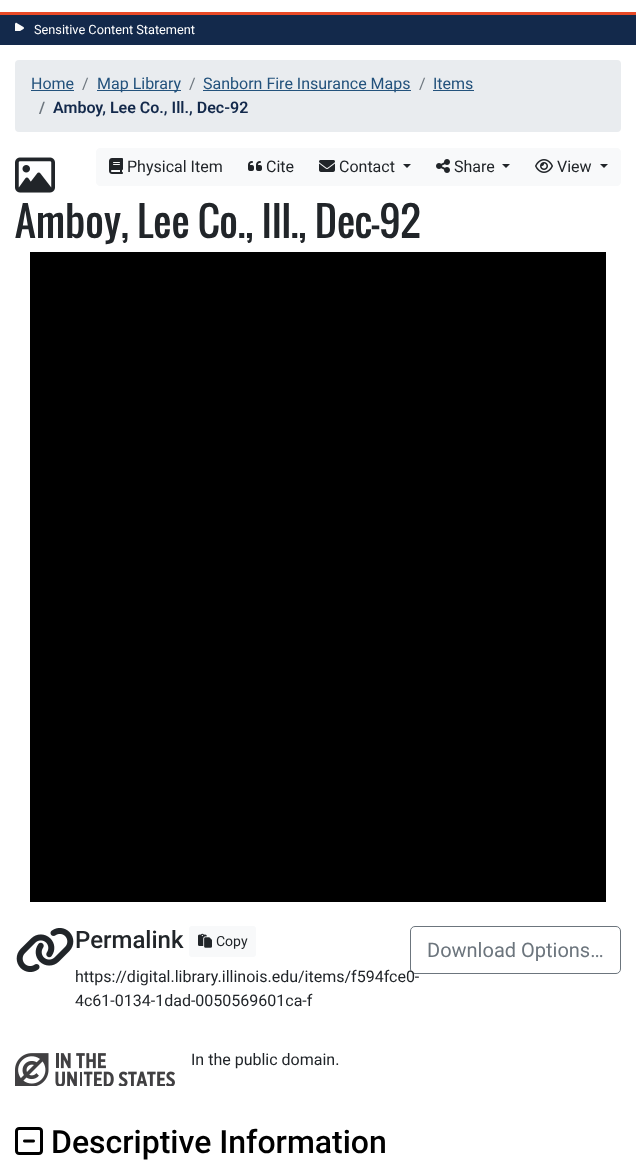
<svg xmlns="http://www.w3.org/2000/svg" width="636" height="1170">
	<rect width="100%" height="100%" fill="#FFFFFF" />
	<rect x="0" y="12" width="636" height="3" fill="#E84A27" />
	<rect x="0" y="15" width="636" height="30" fill="#13294B" />
	<image x="15" y="22" width="9" height="9" href="assets/img1.png" />
	<text x="34" y="34" font-family="Roboto" font-size="12.75" fill="#FFFFFF">Sensitive Content Statement</text>
	<rect x="15" y="60" width="606" height="72" rx="4" fill="#E9ECEF" />
	<text x="31" y="89" font-family="Roboto" font-size="16" fill="#23527C">Home</text>
	<rect x="31" y="90" width="43" height="1" fill="#23527C" />
	<text x="82" y="89" font-family="Roboto" font-size="16" fill="#6C757D">/</text>
	<rect x="97" y="90" width="84" height="1" fill="#23527C" />
	<text x="97" y="89" font-family="Roboto" font-size="16" fill="#23527C">Map Library</text>
	<text x="189" y="89" font-family="Roboto" font-size="16" fill="#6C757D">/</text>
	<rect x="203" y="90" width="208" height="1" fill="#23527C" />
	<text x="203" y="89" font-family="Roboto" font-size="16" fill="#23527C">Sanborn Fire Insurance Maps</text>
	<text x="419" y="89" font-family="Roboto" font-size="16" fill="#6C757D">/</text>
	<text x="433" y="89" font-family="Roboto" font-size="16" fill="#23527C">Items</text>
	<rect x="433" y="90" width="41" height="1" fill="#23527C" />
	<text x="39" y="113" font-family="Roboto" font-size="16" font-weight="600" fill="#6C757D">/</text>
	<text x="53" y="113" font-family="Roboto" font-size="16" font-weight="600" fill="#13294B">Amboy, Lee Co., Ill., Dec-92</text>
	<path d="M100 148H236V186H100C98 186 96 184 96 182V152C96 150 98 148 100 148Z" fill="#F8F9FA" />
	<image x="109" y="158" width="14" height="16" href="assets/img2.png" />
	<text x="127" y="172" font-family="Roboto" font-size="16" fill="#212529">Physical Item</text>
	<rect x="236" y="148" width="286" height="38" fill="#F8F9FA" />
	<image x="248" y="161" width="14" height="10" href="assets/img3.png" />
	<text x="266" y="172" font-family="Roboto" font-size="16" fill="#212529">Cite</text>
	<image x="319" y="160" width="16" height="12" href="assets/img4.png" />
	<text x="339" y="172" font-family="Roboto" font-size="16" fill="#212529">Contact</text>
	<path d="M403 164H411L407 168Z" fill="#212529" />
	<image x="436" y="159" width="14" height="14" href="assets/img5.png" />
	<text x="454" y="172" font-family="Roboto" font-size="16" fill="#212529">Share</text>
	<path d="M502 164H510L506 168Z" fill="#212529" />
	<path d="M522 148H617C619 148 621 150 621 152V182C621 184 619 186 617 186H522Z" fill="#F8F9FA" />
	<image x="535" y="159" width="18" height="14" href="assets/img6.png" />
	<text x="557" y="172" font-family="Roboto" font-size="16" fill="#212529">View</text>
	<path d="M600 164H608L604 168Z" fill="#212529" />
	<image x="15" y="157" width="40" height="36" href="assets/img7.png" />
	<text x="15" y="238" font-family="Oswald" font-size="40" fill="#212529">Amboy, Lee Co., Ill., Dec-92</text>
	<rect x="30" y="252" width="576" height="650" fill="#000000" />
	<image x="16" y="928" width="58" height="44" href="assets/img8.png" />
	<text x="75" y="948" font-family="Roboto" font-size="24" font-weight="500" fill="#212529">Permalink</text>
	<rect x="189" y="926" width="67" height="31" rx="3" fill="#F8F9FA" />
	<image x="198" y="933" width="14" height="15" href="assets/img9.png" />
	<text x="216" y="946" font-family="Roboto" font-size="14" fill="#212529">Copy</text>
	<rect x="410.5" y="926.5" width="210" height="47" rx="4.5" fill="none" stroke="#6C757D" />
	<g font-family="Roboto" font-size="16" fill="#212529">
		<text x="75" y="982">https://digital.library.illinois.edu/items/f594fce0-</text>
		<text x="75" y="1006">4c61-0134-1dad-0050569601ca-f</text>
	</g>
	<text x="427" y="957" font-family="Roboto" font-size="20" fill="#6C757D">Download Options…</text>
	<image x="15" y="1053" width="160" height="33" href="assets/img10.png" />
	<text x="191" y="1065" font-family="Roboto" font-size="16" fill="#212529">In the public domain.</text>
	<image x="15" y="1127" width="28" height="28" href="assets/img11.png" />
	<text x="51" y="1153" font-family="Roboto" font-size="32" font-weight="500" fill="#000000">Descriptive Information</text>
</svg>
